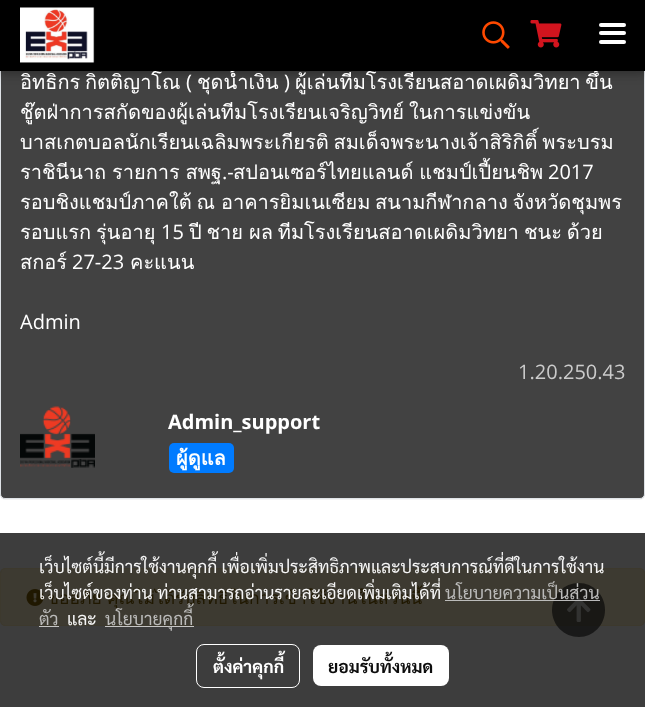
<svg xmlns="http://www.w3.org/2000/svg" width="645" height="707">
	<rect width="100%" height="100%" fill="#FFFFFF" />
	<rect x="0" y="533" width="645" height="174" fill="#3D3D3D" />
	<rect x="0" y="-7" width="645" height="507" rx="5" fill="#000000" fill-opacity="0.05" filter="blur(0.5px)" />
	<rect x="0.5" y="-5.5" width="644" height="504" rx="4.5" fill="#424242" stroke="#DEE2E6" />
	<rect x="0" y="3" width="645" height="71" fill="#000000" fill-opacity="0.12" filter="blur(6px)" />
	<rect x="0" y="3" width="645" height="71" fill="#000000" fill-opacity="0.16" filter="blur(3px)" />
	<text x="197" y="89" font-family="Loma" font-size="20" fill="#FFFFFF">ชุดน้ำเงิน</text>
	<text x="284" y="89" font-family="Open Sans" font-size="20" fill="#FFFFFF">)</text>
	<text x="295" y="89" word-spacing="-2" font-family="Loma" font-size="20" fill="#FFFFFF">ผู้เล่นทีมโรงเรียนสอาดเผดิมวิทยา ขึ้น</text>
	<rect x="0" y="0" width="645" height="71" fill="#000000" />
	<image x="20" y="7" width="75" height="56" href="assets/img1.png" />
	<image x="482" y="21" width="28" height="28" href="assets/img2.png" />
	<image x="530" y="20" width="32" height="28" href="assets/img3.png" />
	<rect x="599" y="31" width="27" height="4" rx="2" fill="#FFFFFF" />
	<rect x="599" y="23" width="27" height="4" rx="2" fill="#FFFFFF" />
	<rect x="599" y="40" width="27" height="4" rx="2" fill="#FFFFFF" />
	<g font-family="Loma" font-size="20" fill="#FFFFFF">
		<text x="20" y="89">อิทธิกร</text>
		<text x="85" y="89">กิตติญาโณ</text>
	</g>
	<text x="186" y="89" font-family="Open Sans" font-size="20" fill="#FFFFFF">(</text>
	<g font-family="Loma" font-size="20" fill="#FFFFFF">
		<text x="20" y="119">ชู๊ตฝ่าการสกัดของผู้เล่นทีมโรงเรียนเจริญวิทย์</text>
		<text x="409" y="119">ในการแข่งขัน</text>
		<text x="20" y="149" word-spacing="-2">บาสเกตบอลนักเรียนเฉลิมพระเกียรติ สมเด็จพระนางเจ้าสิริกิติ์ พระบรม</text>
		<text x="20" y="179" word-spacing="-1">ราชินีนาถ รายการ สพฐ</text>
	</g>
	<text x="222" y="179" font-family="Open Sans" font-size="20" fill="#FFFFFF">.-</text>
	<text x="233" y="179" word-spacing="-1" font-family="Loma" font-size="20" fill="#FFFFFF">สปอนเซอร์ไทยแลนด์ แชมป์เปี้ยนชิพ</text>
	<text x="548" y="179" font-family="Open Sans" font-size="20" fill="#FFFFFF">2017</text>
	<g font-family="Loma" font-size="20" fill="#FFFFFF">
		<text x="20" y="209" word-spacing="-2">รอบชิงแชมป์ภาคใต้ ณ</text>
		<text x="221" y="209" word-spacing="-2">อาคารยิมเนเซียม สนามกีฬากลาง จังหวัดชุมพร</text>
		<text x="20" y="239">รอบแรก</text>
		<text x="96" y="239">รุ่นอายุ</text>
	</g>
	<text x="161" y="239" font-family="Open Sans" font-size="20" fill="#FFFFFF">15</text>
	<g font-family="Loma" font-size="20" fill="#FFFFFF">
		<text x="189" y="239" word-spacing="-2">ปี ชาย</text>
		<text x="249" y="239" word-spacing="-2">ผล ทีมโรงเรียนสอาดเผดิมวิทยา</text>
		<text x="524" y="239" word-spacing="-2">ชนะ ด้วย</text>
		<text x="20" y="269">สกอร์</text>
	</g>
	<text x="72" y="269" font-family="Open Sans" font-size="20" fill="#FFFFFF">27-23</text>
	<text x="130" y="269" font-family="Loma" font-size="20" fill="#FFFFFF">คะแนน</text>
	<text x="20" y="329" font-family="Open Sans" font-size="20" fill="#FFFFFF">Admin</text>
	<text x="518" y="379" font-family="Open Sans" font-size="20" fill="#CBCBCB">1.20.250.43</text>
	<image x="20" y="406" width="75" height="62" href="assets/img4.png" />
	<text x="168" y="429" font-family="Open Sans" font-size="20" font-weight="700" fill="#FFFFFF">Admin_support</text>
	<rect x="169" y="443" width="65" height="30" rx="5" fill="#007BFF" />
	<text x="176" y="465" font-family="Loma" font-size="20" font-weight="700" fill="#FFFFFF">ผู้ดูแล</text>
	<rect x="0.5" y="568.5" width="644" height="57" rx="4.5" fill="#3D3A31" stroke="#3D392D" />
	<image x="26" y="589" width="18" height="17" href="assets/img5.png" />
	<text x="47" y="604" word-spacing="-1" font-family="Loma" font-size="17.5" fill="#201801">ขออภัย คุณไม่ได้รับสิทธิในการเข้าใช้งานในส่วนนี้</text>
	<g font-family="Sarabun" font-size="17.5" fill="#F5F5F5">
		<text x="39" y="573">เว็บไซต์นี้มีการใช้งานคุกกี้ เพื่อเพิ่มประสิทธิภาพและประสบการณ์ที่ดีในการใช้งาน</text>
		<text x="39" y="599">เว็บไซต์ของท่าน ท่านสามารถอ่านรายละเอียดเพิ่มเติมได้ที่</text>
	</g>
	<path d="M579 583C564 583 552 595 552 610C552 625 564 637 579 637C593 637 605 625 605 610C605 595 593 583 579 583Z" fill="#0A0A0A" fill-opacity="0.7" />
	<image x="567" y="598" width="24" height="24" href="assets/img6.png" />
	<text x="445" y="599" font-family="Sarabun" font-size="17.5" fill="#BBBBBA">นโยบายความเป็นส่วน</text>
	<rect x="445" y="600" width="155" height="1" fill="#C2C2C2" fill-opacity="0.95" />
	<text x="39" y="625" font-family="Sarabun" font-size="17.5" fill="#BBBBBA">ตัว</text>
	<rect x="39" y="626" width="20" height="1" fill="#C5C5C5" />
	<text x="67" y="625" font-family="Sarabun" font-size="17.5" fill="#F5F5F5">และ</text>
	<rect x="105" y="626" width="89" height="1" fill="#C5C5C5" />
	<text x="105" y="625" font-family="Sarabun" font-size="17.5" fill="#BBBBBA">นโยบายคุกกี้</text>
	<rect x="196.5" y="644.5" width="103" height="43" rx="7.5" fill="none" stroke="#FFFFFF" />
	<text x="213" y="673" font-family="Sarabun" font-size="17.5" font-weight="700" fill="#FFFFFF">ตั้งค่าคุกกี้</text>
	<rect x="313" y="645" width="136" height="41" rx="8" fill="#FFFFFF" />
	<text x="328" y="673" font-family="Sarabun" font-size="17.5" font-weight="700" fill="#0D0D0D">ยอมรับทั้งหมด</text>
</svg>
